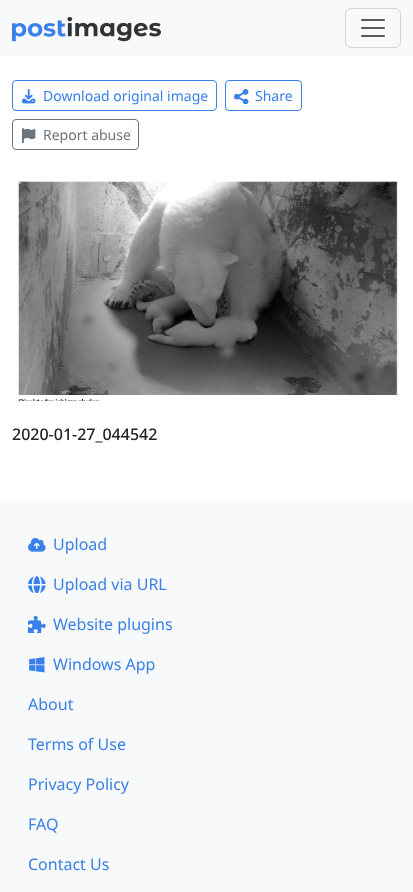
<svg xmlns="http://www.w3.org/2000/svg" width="413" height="892">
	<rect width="100%" height="100%" fill="#FFFFFF" />
	<rect x="0" y="0" width="413" height="56" fill="#F8F9FA" />
	<image x="12" y="17" width="149" height="25" href="assets/img1.png" />
	<rect x="345.5" y="8.5" width="55" height="39" rx="5.5" fill="none" stroke="#D3D4D5" />
	<image x="361" y="19" width="24" height="18" href="assets/img2.png" />
	<rect x="12.5" y="80.5" width="204" height="30" rx="3.5" fill="none" stroke="#3A80EA" />
	<image x="21" y="89" width="15" height="15" href="assets/img3.png" />
	<text x="43" y="101" font-family="Noto Sans" font-size="14" fill="#3A80EA">Download original image</text>
	<rect x="225.5" y="80.5" width="76" height="30" rx="3.5" fill="none" stroke="#3A80EA" />
	<image x="234" y="89" width="15" height="15" href="assets/img4.png" />
	<text x="255" y="101" font-family="Noto Sans" font-size="14" fill="#3A80EA">Share</text>
	<rect x="12.5" y="119.5" width="126" height="30" rx="3.5" fill="none" stroke="#6C757D" />
	<image x="21" y="128" width="15" height="15" href="assets/img5.png" />
	<text x="43" y="140" font-family="Noto Sans" font-size="14" fill="#6C757D">Report abuse</text>
	<image x="18" y="181" width="380" height="220" href="assets/img6.png" />
	<text x="12" y="440" font-family="Noto Sans" font-size="16" font-weight="500" fill="#212529">2020-01-27_044542</text>
	<rect x="0" y="500" width="413" height="392" fill="#F8F9FA" />
	<image x="28" y="538" width="18" height="14" href="assets/img7.png" />
	<text x="53" y="550" font-family="Noto Sans" font-size="16" fill="#3A80EA">Upload</text>
	<image x="28" y="576" width="18" height="17" href="assets/img8.png" />
	<text x="53" y="590" font-family="Noto Sans" font-size="16" fill="#3A80EA">Upload via URL</text>
	<image x="28" y="616" width="18" height="17" href="assets/img9.png" />
	<text x="53" y="630" font-family="Noto Sans" font-size="16" fill="#3A80EA">Website plugins</text>
	<image x="29" y="657" width="16" height="16" href="assets/img10.png" />
	<g font-family="Noto Sans" font-size="16" fill="#3A80EA">
		<text x="53" y="670">Windows App</text>
		<text x="28" y="710">About</text>
		<text x="28" y="750">Terms of Use</text>
		<text x="28" y="790">Privacy Policy</text>
		<text x="28" y="830">FAQ</text>
		<text x="28" y="870">Contact Us</text>
	</g>
</svg>
